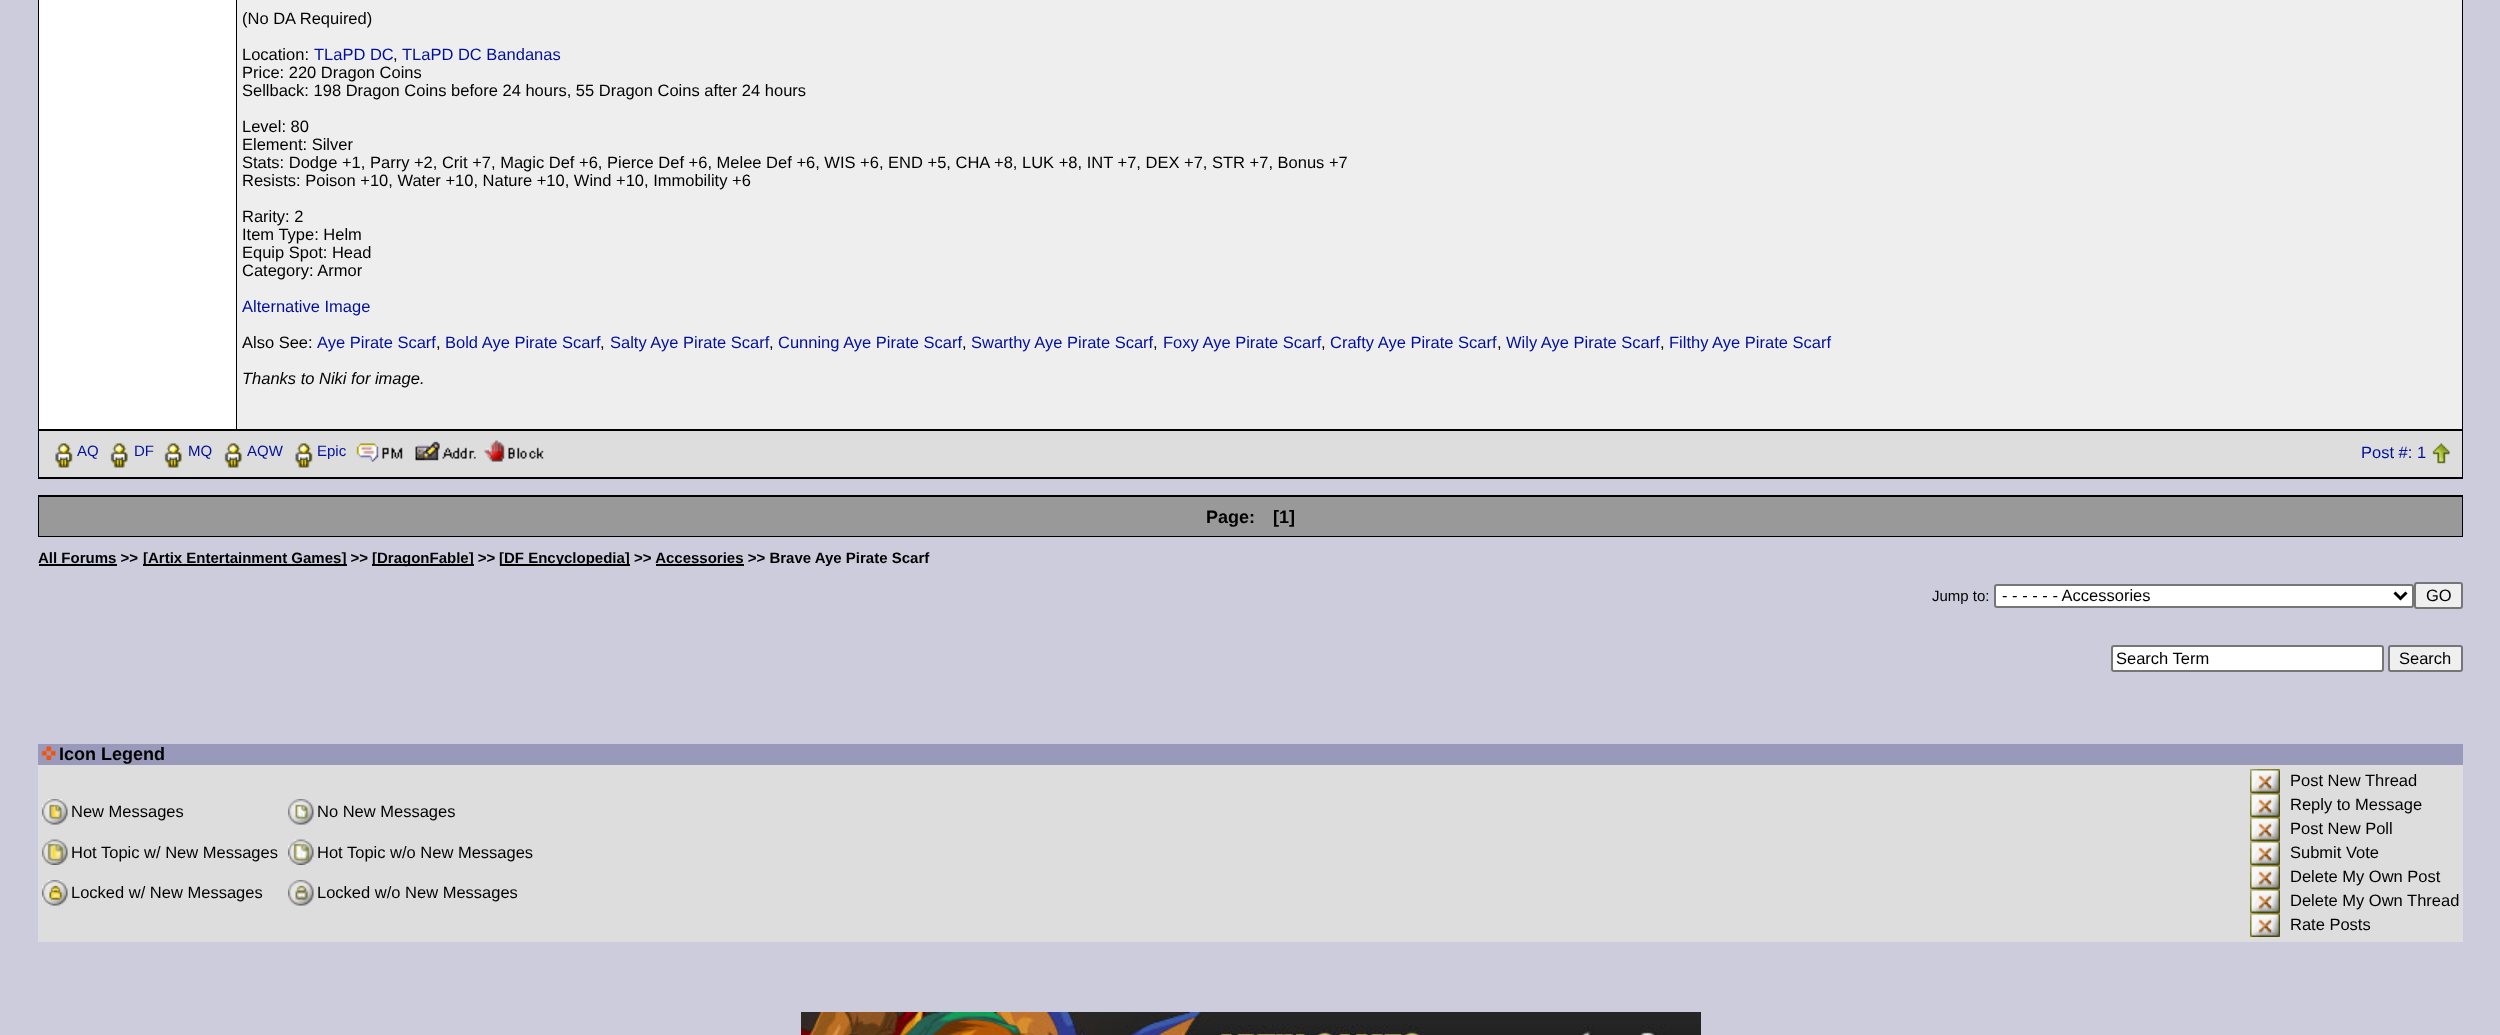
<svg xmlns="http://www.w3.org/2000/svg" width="2500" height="1035">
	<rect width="100%" height="100%" fill="#CCCCDD" />
	<rect x="38" y="0" width="2425" height="479" fill="#000000" />
	<rect x="39" y="0" width="197" height="429" fill="#FFFFFF" />
	<rect x="237" y="0" width="2225" height="429" fill="#EEEEEE" />
	<g font-family="Liberation Sans" font-size="16.5" fill="#000000">
		<text x="242" y="24">(No DA Required)</text>
		<text x="242" y="60">Location:</text>
	</g>
	<text x="314" y="60" font-family="Liberation Sans" font-size="16.5" fill="#001099">TLaPD DC</text>
	<text x="393" y="60" font-family="Liberation Sans" font-size="16.5" fill="#000000">,</text>
	<text x="402" y="60" font-family="Liberation Sans" font-size="16.5" fill="#001099">TLaPD DC Bandanas</text>
	<g font-family="Liberation Sans" font-size="16.5" fill="#000000">
		<text x="242" y="78">Price: 220 Dragon Coins</text>
		<text x="242" y="96">Sellback: 198 Dragon Coins before 24 hours, 55 Dragon Coins after 24 hours</text>
		<text x="242" y="132">Level: 80</text>
		<text x="242" y="150">Element: Silver</text>
		<text x="242" y="168">Stats: Dodge +1, Parry +2, Crit +7, Magic Def +6, Pierce Def +6, Melee Def +6, WIS +6, END +5, CHA +8, LUK +8, INT +7, DEX +7, STR +7, Bonus +7</text>
		<text x="242" y="186">Resists: Poison +10, Water +10, Nature +10, Wind +10, Immobility +6</text>
		<text x="242" y="222">Rarity: 2</text>
		<text x="242" y="240">Item Type: Helm</text>
		<text x="242" y="258">Equip Spot: Head</text>
		<text x="242" y="276">Category: Armor</text>
	</g>
	<text x="242" y="312" font-family="Liberation Sans" font-size="16.5" fill="#001099">Alternative Image</text>
	<text x="242" y="348" font-family="Liberation Sans" font-size="16.5" fill="#000000">Also See:</text>
	<text x="317" y="348" font-family="Liberation Sans" font-size="16.5" fill="#001099">Aye Pirate Scarf</text>
	<text x="436" y="348" font-family="Liberation Sans" font-size="16.5" fill="#000000">,</text>
	<text x="445" y="348" font-family="Liberation Sans" font-size="16.5" fill="#001099">Bold Aye Pirate Scarf</text>
	<text x="600" y="348" font-family="Liberation Sans" font-size="16.5" fill="#000000">,</text>
	<text x="610" y="348" font-family="Liberation Sans" font-size="16.5" fill="#001099">Salty Aye Pirate Scarf</text>
	<text x="769" y="348" font-family="Liberation Sans" font-size="16.5" fill="#000000">,</text>
	<text x="778" y="348" font-family="Liberation Sans" font-size="16.5" fill="#001099">Cunning Aye Pirate Scarf</text>
	<text x="962" y="348" font-family="Liberation Sans" font-size="16.5" fill="#000000">,</text>
	<text x="971" y="348" font-family="Liberation Sans" font-size="16.5" fill="#001099">Swarthy Aye Pirate Scarf</text>
	<text x="1153" y="348" font-family="Liberation Sans" font-size="16.5" fill="#000000">,</text>
	<text x="1163" y="348" font-family="Liberation Sans" font-size="16.5" fill="#001099">Foxy Aye Pirate Scarf</text>
	<text x="1321" y="348" font-family="Liberation Sans" font-size="16.5" fill="#000000">,</text>
	<text x="1330" y="348" font-family="Liberation Sans" font-size="16.5" fill="#001099">Crafty Aye Pirate Scarf</text>
	<text x="1497" y="348" font-family="Liberation Sans" font-size="16.5" fill="#000000">,</text>
	<text x="1506" y="348" font-family="Liberation Sans" font-size="16.5" fill="#001099">Wily Aye Pirate Scarf</text>
	<text x="1660" y="348" font-family="Liberation Sans" font-size="16.5" fill="#000000">,</text>
	<text x="1669" y="348" font-family="Liberation Sans" font-size="16.5" fill="#001099">Filthy Aye Pirate Scarf</text>
	<text x="242" y="384" font-family="Liberation Sans" font-size="16.5" font-style="italic" fill="#000000">Thanks to Niki for image.</text>
	<rect x="39" y="431" width="2423" height="46" fill="#DDDDDD" />
	<image x="55" y="443" width="18" height="25" href="assets/img1.png" />
	<text x="77" y="456" font-family="Liberation Sans" font-size="15" fill="#001099">AQ</text>
	<image x="110" y="443" width="18" height="25" href="assets/img2.png" />
	<text x="134" y="456" font-family="Liberation Sans" font-size="15" fill="#001099">DF</text>
	<image x="164" y="443" width="18" height="25" href="assets/img2.png" />
	<text x="188" y="456" font-family="Liberation Sans" font-size="15" fill="#001099">MQ</text>
	<image x="224" y="443" width="18" height="25" href="assets/img2.png" />
	<text x="247" y="456" font-family="Liberation Sans" font-size="15" fill="#001099">AQW</text>
	<image x="295" y="443" width="18" height="25" href="assets/img3.png" />
	<text x="317" y="456" font-family="Liberation Sans" font-size="15" fill="#001099">Epic</text>
	<image x="356" y="443" width="47" height="19" href="assets/img4.png" />
	<image x="415" y="441" width="61" height="20" href="assets/img5.png" />
	<image x="484" y="440" width="60" height="22" href="assets/img6.png" />
	<text x="2361" y="458" font-family="Liberation Sans" font-size="16.5" fill="#001099">Post #: 1</text>
	<image x="2432" y="443" width="18" height="21" href="assets/img7.png" />
	<rect x="38" y="495" width="2425" height="42" fill="#000000" />
	<rect x="39" y="497" width="2423" height="39" fill="#999999" />
	<g font-family="Liberation Sans" font-size="18" font-weight="700" fill="#000000">
		<text x="1206" y="523">Page:</text>
		<text x="1273" y="523">[1]</text>
	</g>
	<text x="38" y="563" font-family="Liberation Sans" font-size="15" font-weight="700" fill="#000000">All Forums &gt;&gt;</text>
	<rect x="39" y="564" width="78" height="2" fill="#000000" />
	<rect x="143" y="564" width="204" height="2" fill="#000000" />
	<text x="143" y="563" font-family="Liberation Sans" font-size="15" font-weight="700" fill="#000000">[Artix Entertainment Games] &gt;&gt;</text>
	<rect x="372" y="564" width="102" height="2" fill="#000000" />
	<text x="372" y="563" font-family="Liberation Sans" font-size="15" font-weight="700" fill="#000000">[DragonFable] &gt;&gt;</text>
	<rect x="500" y="564" width="130" height="2" fill="#000000" />
	<text x="499" y="563" font-family="Liberation Sans" font-size="15" font-weight="700" fill="#000000">[DF Encyclopedia] &gt;&gt; Accessories &gt;&gt; Brave Aye Pirate Scarf</text>
	<rect x="656" y="564" width="88" height="2" fill="#000000" />
	<text x="1932" y="601" font-family="Liberation Sans" font-size="15" fill="#000000">Jump to:</text>
	<rect x="1995" y="585" width="418" height="22" rx="2" fill="#FFFFFF" stroke="#767676" stroke-width="2" />
	<path d="M2394.5 592.5L2400.5 598.5L2406.5 592.5" fill="none" stroke="#000000" stroke-width="3" />
	<text x="2002" y="601" font-family="Liberation Sans" font-size="16.5" fill="#000000">- - - - - - Accessories</text>
	<rect x="2415" y="583" width="47" height="25" rx="2" fill="#EFEFEF" stroke="#767676" stroke-width="2" />
	<text x="2426" y="601" font-family="Liberation Sans" font-size="16.5" fill="#000000">GO</text>
	<rect x="2112" y="646" width="271" height="25" rx="2" fill="#FFFFFF" stroke="#767676" stroke-width="2" />
	<text x="2116" y="664" font-family="Liberation Sans" font-size="16.5" fill="#000000">Search Term</text>
	<rect x="2389" y="646" width="73" height="25" rx="2" fill="#EFEFEF" stroke="#767676" stroke-width="2" />
	<text x="2399" y="664" font-family="Liberation Sans" font-size="16.5" fill="#000000">Search</text>
	<rect x="38" y="744" width="2425" height="21" fill="#9999BB" />
	<image x="41" y="746" width="15" height="14" href="assets/img8.png" />
	<text x="59" y="760" font-family="Liberation Sans" font-size="18" font-weight="700" fill="#000000">Icon Legend</text>
	<rect x="38" y="765" width="2425" height="177" fill="#DDDDDD" />
	<image x="42" y="799" width="26" height="26" href="assets/img9.png" />
	<text x="71" y="817" font-family="Liberation Sans" font-size="16.5" fill="#000000">New Messages</text>
	<image x="288" y="799" width="26" height="26" href="assets/img10.png" />
	<text x="317" y="817" font-family="Liberation Sans" font-size="16.5" fill="#000000">No New Messages</text>
	<image x="42" y="839" width="26" height="26" href="assets/img11.png" />
	<text x="71" y="858" font-family="Liberation Sans" font-size="16.5" fill="#000000">Hot Topic w/ New Messages</text>
	<image x="288" y="839" width="26" height="26" href="assets/img12.png" />
	<text x="317" y="858" font-family="Liberation Sans" font-size="16.5" fill="#000000">Hot Topic w/o New Messages</text>
	<image x="42" y="880" width="26" height="26" href="assets/img13.png" />
	<text x="71" y="898" font-family="Liberation Sans" font-size="16.5" fill="#000000">Locked w/ New Messages</text>
	<image x="288" y="880" width="26" height="26" href="assets/img14.png" />
	<text x="317" y="898" font-family="Liberation Sans" font-size="16.5" fill="#000000">Locked w/o New Messages</text>
	<image x="2250" y="769" width="30" height="24" href="assets/img15.png" />
	<text x="2290" y="786" font-family="Liberation Sans" font-size="16.5" fill="#000000">Post New Thread</text>
	<image x="2250" y="793" width="30" height="24" href="assets/img15.png" />
	<text x="2290" y="810" font-family="Liberation Sans" font-size="16.5" fill="#000000">Reply to Message</text>
	<image x="2250" y="817" width="30" height="24" href="assets/img15.png" />
	<text x="2290" y="834" font-family="Liberation Sans" font-size="16.5" fill="#000000">Post New Poll</text>
	<image x="2250" y="841" width="30" height="24" href="assets/img15.png" />
	<text x="2290" y="858" font-family="Liberation Sans" font-size="16.5" fill="#000000">Submit Vote</text>
	<image x="2250" y="865" width="30" height="24" href="assets/img15.png" />
	<text x="2290" y="882" font-family="Liberation Sans" font-size="16.5" fill="#000000">Delete My Own Post</text>
	<image x="2250" y="889" width="30" height="24" href="assets/img15.png" />
	<text x="2290" y="906" font-family="Liberation Sans" font-size="16.5" fill="#000000">Delete My Own Thread</text>
	<image x="2250" y="913" width="30" height="24" href="assets/img15.png" />
	<text x="2290" y="930" font-family="Liberation Sans" font-size="16.5" fill="#000000">Rate Posts</text>
	<image x="801" y="1012" width="900" height="23" href="assets/img16.png" />
</svg>
